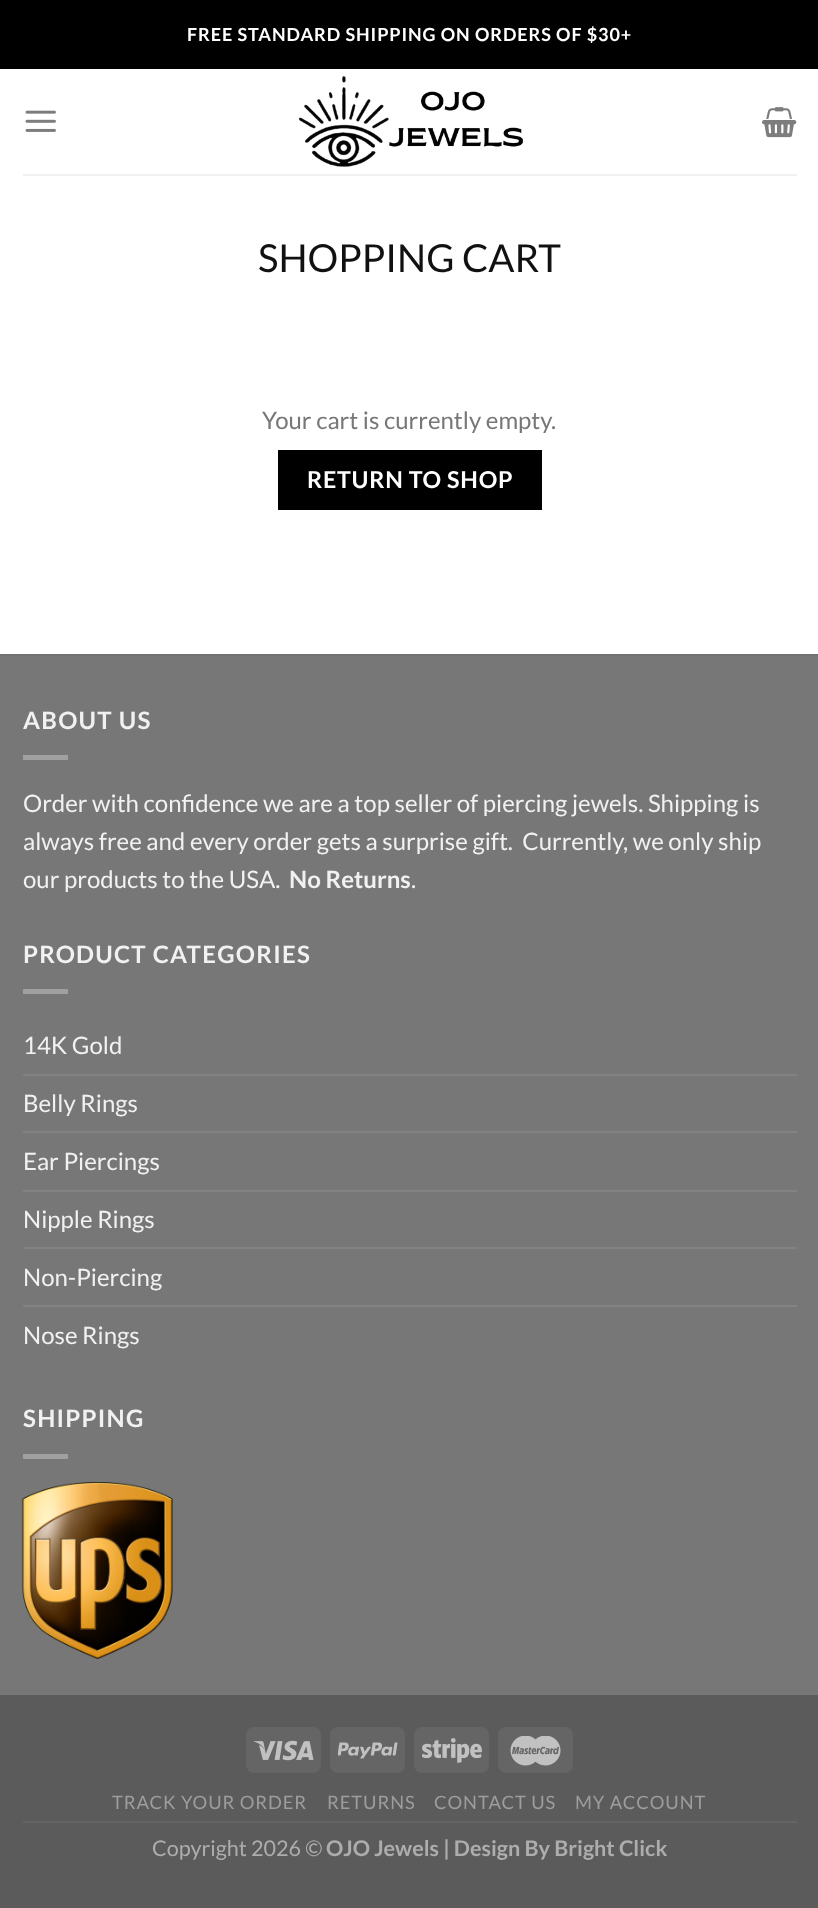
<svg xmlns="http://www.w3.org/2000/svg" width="818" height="1908">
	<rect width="100%" height="100%" fill="#5B5B5B" />
	<rect x="0" y="69" width="818" height="585" fill="#FFFFFF" />
	<rect x="0" y="0" width="818" height="69" fill="#000000" />
	<text x="187" y="41" font-family="Lato" font-size="18" font-weight="700" letter-spacing="0.9" fill="#FFFFFF">FREE STANDARD SHIPPING ON ORDERS OF $30+</text>
	<image x="25" y="110" width="31" height="22" href="assets/img1.png" />
	<image x="298" y="76" width="226" height="91" href="assets/img2.png" />
	<image x="762" y="107" width="35" height="31" href="assets/img3.png" />
	<rect x="23" y="174" width="774" height="2" fill="#F1F1F1" />
	<text x="258" y="272" font-family="Lato" font-size="38.5" fill="#111111">SHOPPING CART</text>
	<text x="262" y="429" font-family="Lato" font-size="24" fill="#777777">Your cart is currently empty.</text>
	<rect x="278" y="450" width="264" height="60" fill="#000000" />
	<text x="307" y="488" font-family="Lato" font-size="23.25" font-weight="700" letter-spacing="0.75" fill="#FFFFFF">RETURN TO SHOP</text>
	<rect x="0" y="656" width="818" height="1039" fill="#777777" />
	<rect x="0" y="654" width="818" height="2" fill="#717171" />
	<text x="23" y="729" font-family="Lato" font-size="24" font-weight="700" letter-spacing="1.25" fill="#F1F1F1">ABOUT US</text>
	<rect x="23" y="755" width="45" height="5" fill="#A0A0A0" />
	<g font-family="Lato" font-size="24" fill="#F1F1F1">
		<text x="23" y="812">Order with confidence we are a top seller of piercing jewels. Shipping is</text>
		<text x="23" y="850" xml:space="preserve">always free and every order gets a surprise gift.  Currently, we only ship</text>
		<text x="23" y="888">our products to the USA.</text>
	</g>
	<text x="289" y="888" font-family="Lato" font-size="24" font-weight="700" fill="#F1F1F1">No Returns</text>
	<text x="411" y="888" font-family="Lato" font-size="24" fill="#F1F1F1">.</text>
	<text x="23" y="963" font-family="Lato" font-size="24" font-weight="700" letter-spacing="1.25" fill="#F1F1F1">PRODUCT CATEGORIES</text>
	<rect x="23" y="989" width="45" height="5" fill="#A0A0A0" />
	<text x="23" y="1054" font-family="Lato" font-size="24" fill="#F1F1F1">14K Gold</text>
	<rect x="23" y="1074" width="774" height="2" fill="#828282" />
	<text x="23" y="1112" font-family="Lato" font-size="24" fill="#F1F1F1">Belly Rings</text>
	<rect x="23" y="1131" width="774" height="2" fill="#828282" />
	<text x="23" y="1170" font-family="Lato" font-size="24" fill="#F1F1F1">Ear Piercings</text>
	<rect x="23" y="1190" width="774" height="2" fill="#828282" />
	<text x="23" y="1228" font-family="Lato" font-size="24" fill="#F1F1F1">Nipple Rings</text>
	<rect x="23" y="1247" width="774" height="2" fill="#828282" />
	<text x="23" y="1286" font-family="Lato" font-size="24" fill="#F1F1F1">Non-Piercing</text>
	<rect x="23" y="1305" width="774" height="2" fill="#828282" />
	<text x="23" y="1344" font-family="Lato" font-size="24" fill="#F1F1F1">Nose Rings</text>
	<text x="23" y="1427" font-family="Lato" font-size="24" font-weight="700" letter-spacing="1.25" fill="#F1F1F1">SHIPPING</text>
	<rect x="23" y="1454" width="45" height="5" fill="#A0A0A0" />
	<image x="22" y="1482" width="151" height="177" href="assets/img4.png" />
	<rect x="246" y="1727" width="75" height="46" rx="8" fill="#656565" />
	<image x="254" y="1740" width="60" height="21" href="assets/img5.png" />
	<rect x="330" y="1727" width="75" height="46" rx="8" fill="#656565" />
	<image x="338" y="1742" width="60" height="17" href="assets/img6.png" />
	<rect x="414" y="1727" width="75" height="46" rx="8" fill="#656565" />
	<image x="422" y="1738" width="60" height="25" href="assets/img7.png" />
	<rect x="498" y="1727" width="75" height="46" rx="8" fill="#656565" />
	<image x="510" y="1736" width="51" height="30" href="assets/img8.png" />
	<rect x="23" y="1821" width="774" height="2" fill="#656565" />
	<g font-family="Lato" font-size="18.4" letter-spacing="0.9" fill="#9D9D9D">
		<text x="112" y="1809">TRACK YOUR ORDER</text>
		<text x="327" y="1809">RETURNS</text>
		<text x="434" y="1809">CONTACT US</text>
		<text x="575" y="1809">MY ACCOUNT</text>
	</g>
	<text x="152" y="1856" font-family="Lato" font-size="21.6" fill="#ADADAD">Copyright 2026 ©</text>
	<text x="326" y="1856" font-family="Lato" font-size="21.6" font-weight="700" fill="#ADADAD">OJO Jewels | Design By Bright Click</text>
</svg>
